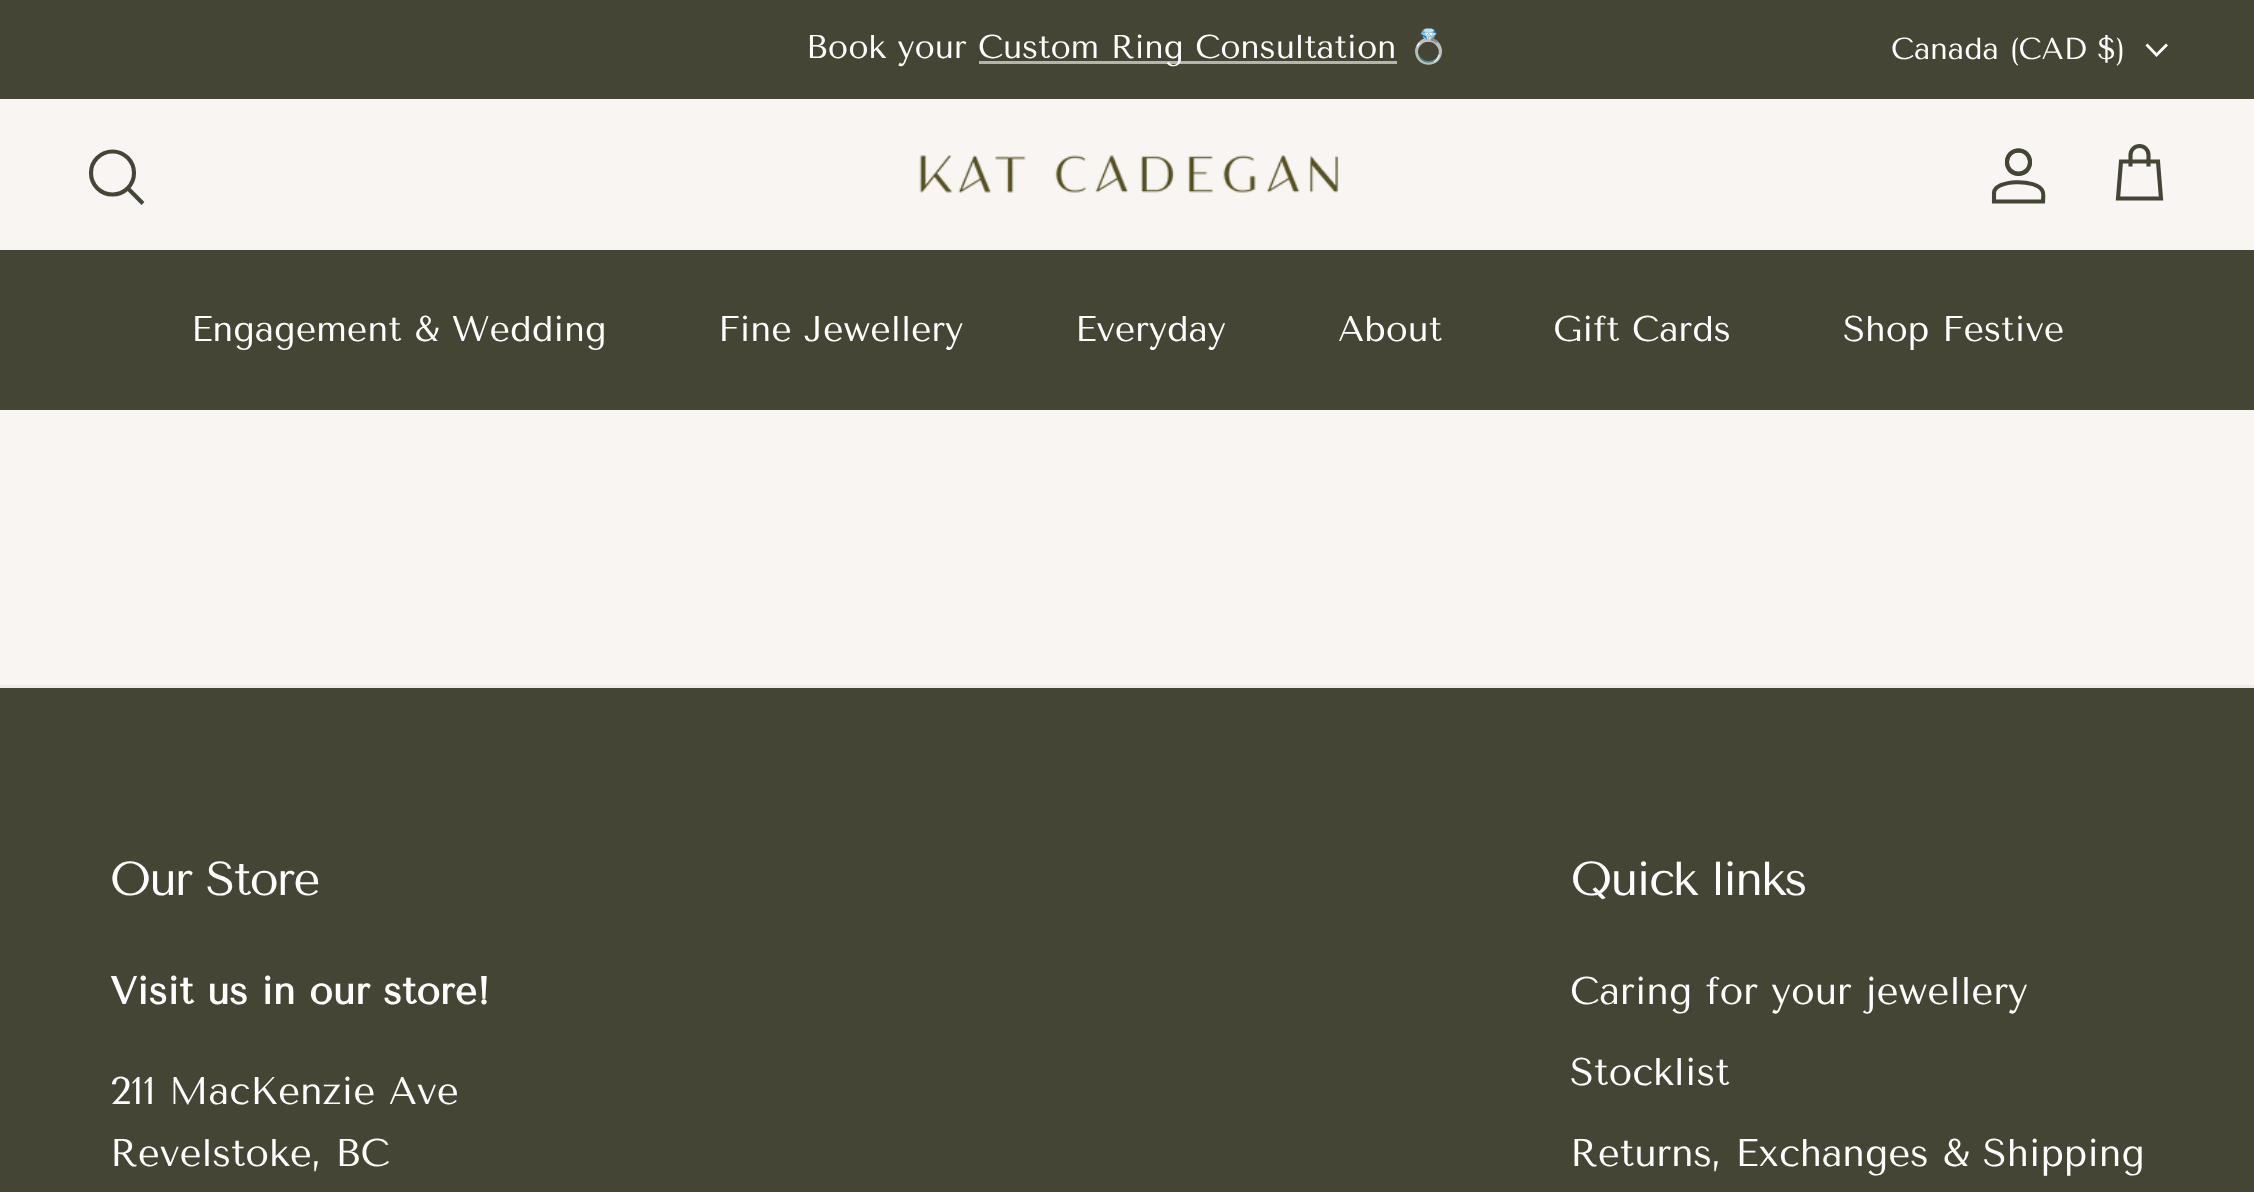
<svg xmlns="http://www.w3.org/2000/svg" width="2254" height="1192">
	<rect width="100%" height="100%" fill="#F8F5F2" />
	<rect x="0" y="0" width="2254" height="99" fill="#454536" />
	<text x="806" y="58" font-family="Tenor Sans" font-size="33" fill="#FFFFFF">Book your</text>
	<rect x="979" y="61" width="418" height="3" fill="#B5B5AF" />
	<text x="978" y="58" font-family="Tenor Sans" font-size="33" fill="#FFFFFF">Custom Ring Consultation</text>
	<text x="1408" y="58" font-family="Noto Color Emoji" font-size="33" fill="#FFFFFF">💍</text>
	<text x="1891" y="59" font-family="Tenor Sans" font-size="30.25" fill="#FFFFFF">Canada (CAD $)</text>
	<path d="M2167 44.5L2156.5 55L2146.5 44.5" fill="none" stroke="#FFFFFF" stroke-width="2.8" />
	<circle cx="112.5" cy="173" r="21.5" fill="none" stroke="#454536" stroke-width="4.1" />
	<path d="M129 189.5L141.5 202" fill="none" stroke="#454536" stroke-width="4.1" stroke-linecap="square" />
	<image x="919" y="155" width="420" height="38" href="assets/img1.png" />
	<path d="M2018.5 148.5C2036.5 148.5 2036.5 176 2018.5 176C2000.5 176 2000.5 148.5 2018.5 148.5ZM2018.5 152.5C2005.5 152.5 2005.5 172 2018.5 172C2031.5 172 2031.5 152.5 2018.5 152.5Z" fill="#454536" fill-rule="evenodd" />
	<circle cx="2018.5" cy="162" r="11.5" fill="none" stroke="#454536" stroke-width="4.1" />
	<path d="M1994 193C1994 179.5 2037 178.5 2042.5 191C2044 193.5 2043 198.5 2043 201.5H1994Z" fill="none" stroke="#454536" stroke-width="4.1" />
	<path d="M2148.5 166.5V155C2148.5 150 2144.5 146 2139.5 146C2134.5 146 2130.5 150 2130.5 155V166.5M2121 161.5H2158L2161 198.5H2118Z" fill="none" stroke="#454536" stroke-width="4.1" />
	<rect x="0" y="250" width="2254" height="160" fill="#454536" />
	<g font-family="Tenor Sans" font-size="35.75" fill="#FFFFFF">
		<text x="191" y="341">Engagement &amp; Wedding</text>
		<text x="718" y="341">Fine Jewellery</text>
		<text x="1075" y="341">Everyday</text>
		<text x="1338" y="341">About</text>
		<text x="1553" y="341">Gift Cards</text>
		<text x="1843" y="341">Shop Festive</text>
	</g>
	<rect x="0" y="688" width="2254" height="504" fill="#454536" />
	<rect x="0" y="685" width="2254" height="3" fill="#ECECEC" />
	<text x="110" y="895" font-family="Tenor Sans" font-size="47.5" letter-spacing="-1.9" fill="#FFFFFF">Our Store</text>
	<text x="110" y="1004" font-family="Tenor Sans" font-size="38.5" font-weight="700" fill="#FFFFFF">Visit us in our store!</text>
	<g font-family="Tenor Sans" font-size="38.5" fill="#FFFFFF">
		<text x="110" y="1104">211 MacKenzie Ave</text>
		<text x="110" y="1166">Revelstoke, BC</text>
	</g>
	<text x="1570" y="895" font-family="Tenor Sans" font-size="47.5" letter-spacing="-1.9" fill="#FFFFFF">Quick links</text>
	<g font-family="Tenor Sans" font-size="38.5" fill="#FFFFFF">
		<text x="1570" y="1004">Caring for your jewellery</text>
		<text x="1570" y="1085">Stocklist</text>
		<text x="1570" y="1166">Returns, Exchanges &amp; Shipping</text>
	</g>
</svg>
